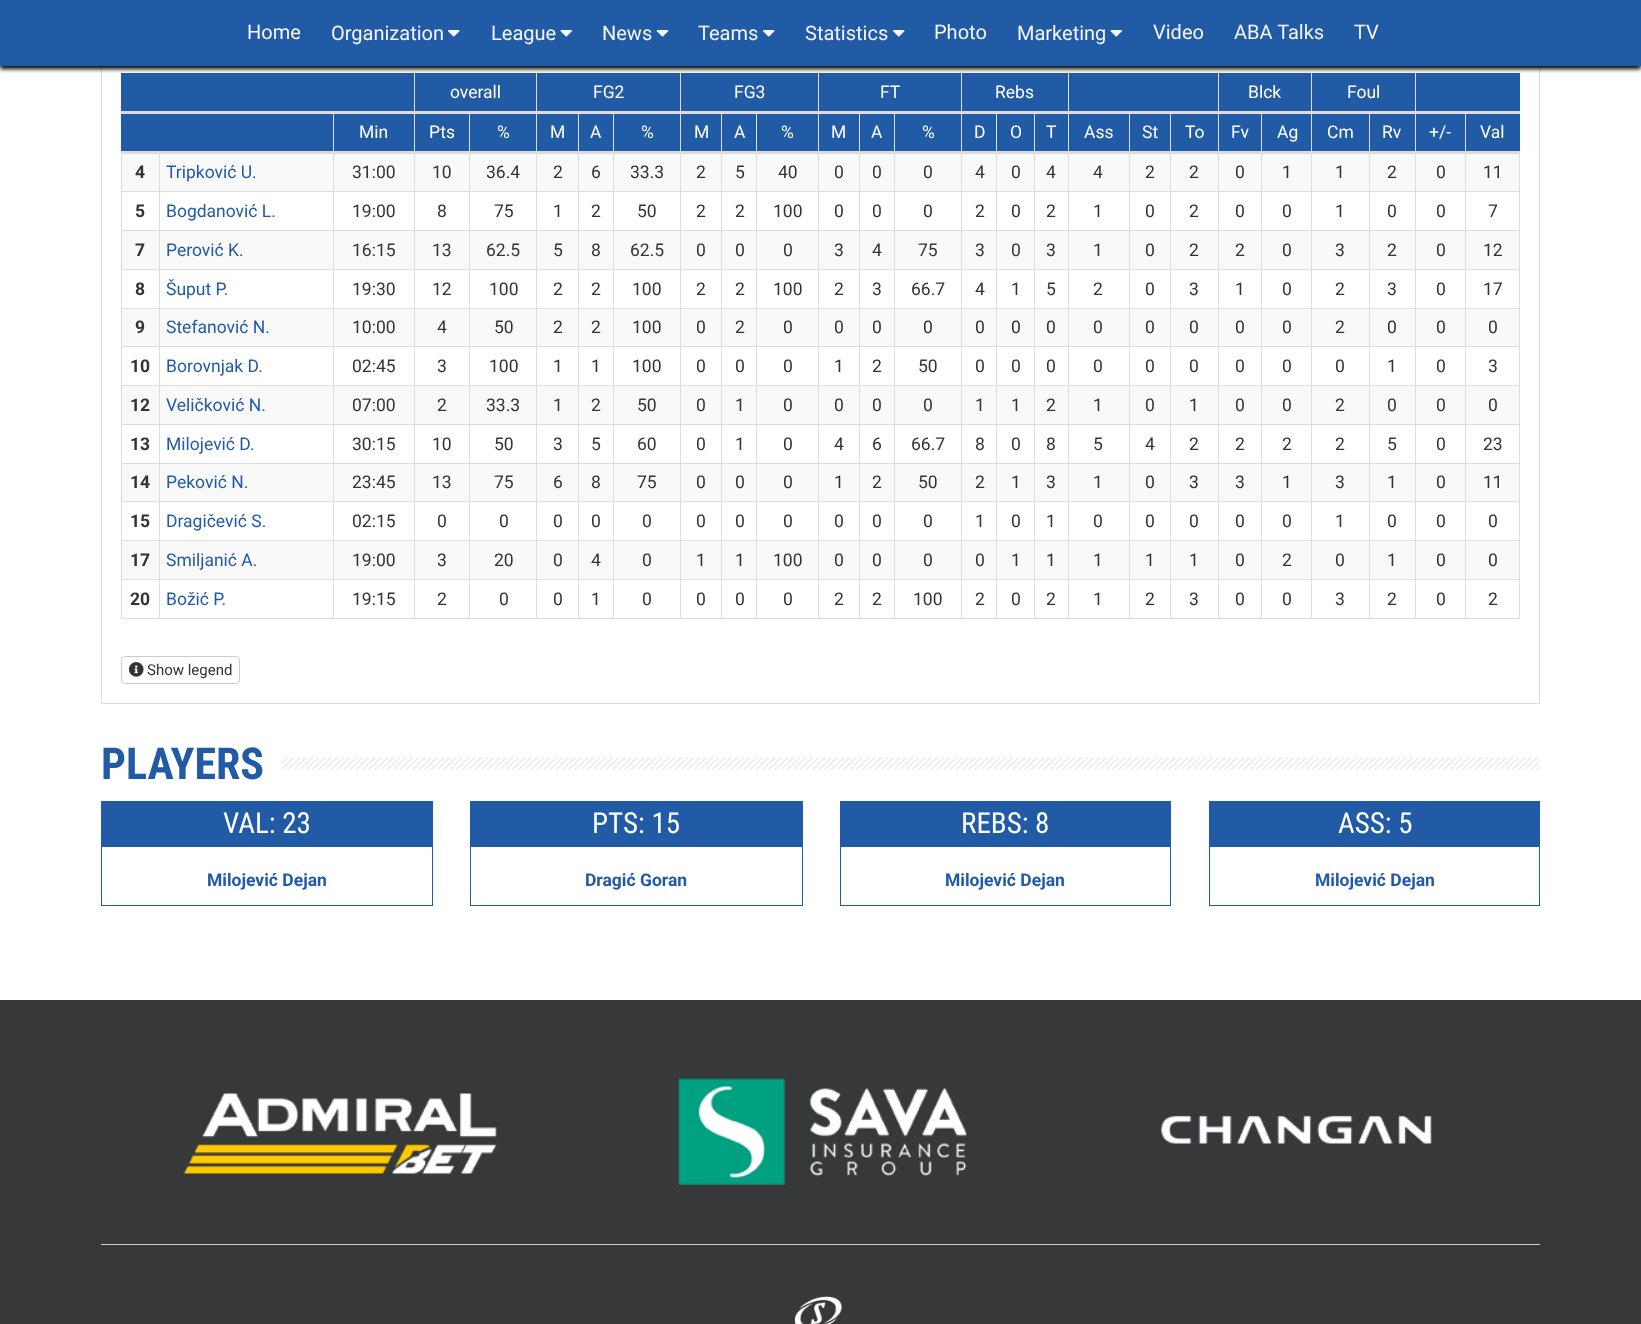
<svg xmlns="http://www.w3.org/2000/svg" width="1641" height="1324">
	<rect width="100%" height="100%" fill="#FFFFFF" />
	<rect x="1539" y="66" width="1" height="638" fill="#DDDDDD" />
	<rect x="101" y="703" width="1439" height="1" fill="#DDDDDD" />
	<rect x="101" y="66" width="1" height="638" fill="#DDDDDD" />
	<rect x="122" y="74" width="1397" height="77" fill="#215BA6" />
	<rect x="121" y="73" width="1399" height="1" fill="#215BA6" />
	<rect x="1519" y="111" width="1" height="42" fill="#215BA6" />
	<rect x="1519" y="73" width="1" height="40" fill="#215BA6" />
	<rect x="122" y="154" width="1397" height="37" fill="#F9F9F9" />
	<rect x="1519" y="154" width="1" height="465" fill="#DDDDDD" />
	<rect x="1465" y="191" width="55" height="1" fill="#DDDDDD" />
	<rect x="1465" y="230" width="55" height="1" fill="#DDDDDD" />
	<rect x="122" y="231" width="1397" height="38" fill="#F9F9F9" />
	<rect x="1465" y="269" width="55" height="1" fill="#DDDDDD" />
	<rect x="1465" y="308" width="55" height="1" fill="#DDDDDD" />
	<rect x="122" y="309" width="1397" height="37" fill="#F9F9F9" />
	<rect x="1465" y="346" width="55" height="1" fill="#DDDDDD" />
	<rect x="1465" y="385" width="55" height="1" fill="#DDDDDD" />
	<rect x="122" y="386" width="1397" height="38" fill="#F9F9F9" />
	<rect x="1465" y="424" width="55" height="1" fill="#DDDDDD" />
	<rect x="1465" y="463" width="55" height="1" fill="#DDDDDD" />
	<rect x="122" y="464" width="1397" height="37" fill="#F9F9F9" />
	<rect x="1465" y="501" width="55" height="1" fill="#DDDDDD" />
	<rect x="1465" y="540" width="55" height="1" fill="#DDDDDD" />
	<rect x="122" y="541" width="1397" height="38" fill="#F9F9F9" />
	<rect x="1465" y="579" width="55" height="1" fill="#DDDDDD" />
	<rect x="121" y="618" width="1399" height="1" fill="#DDDDDD" />
	<rect x="1465" y="579" width="1" height="40" fill="#DDDDDD" />
	<rect x="1415" y="579" width="51" height="1" fill="#DDDDDD" />
	<rect x="1465" y="540" width="1" height="40" fill="#DDDDDD" />
	<rect x="1415" y="540" width="51" height="1" fill="#DDDDDD" />
	<rect x="1465" y="501" width="1" height="40" fill="#DDDDDD" />
	<rect x="1415" y="501" width="51" height="1" fill="#DDDDDD" />
	<rect x="1465" y="463" width="1" height="40" fill="#DDDDDD" />
	<rect x="1415" y="463" width="51" height="1" fill="#DDDDDD" />
	<rect x="1465" y="424" width="1" height="40" fill="#DDDDDD" />
	<rect x="1415" y="424" width="51" height="1" fill="#DDDDDD" />
	<rect x="1465" y="385" width="1" height="40" fill="#DDDDDD" />
	<rect x="1415" y="385" width="51" height="1" fill="#DDDDDD" />
	<rect x="1465" y="346" width="1" height="40" fill="#DDDDDD" />
	<rect x="1415" y="346" width="51" height="1" fill="#DDDDDD" />
	<rect x="1465" y="308" width="1" height="40" fill="#DDDDDD" />
	<rect x="1415" y="308" width="51" height="1" fill="#DDDDDD" />
	<rect x="1465" y="269" width="1" height="40" fill="#DDDDDD" />
	<rect x="1415" y="269" width="51" height="1" fill="#DDDDDD" />
	<rect x="1465" y="230" width="1" height="40" fill="#DDDDDD" />
	<rect x="1415" y="230" width="51" height="1" fill="#DDDDDD" />
	<rect x="1465" y="191" width="1" height="40" fill="#DDDDDD" />
	<rect x="1415" y="191" width="51" height="1" fill="#DDDDDD" />
	<rect x="1415" y="579" width="1" height="40" fill="#DDDDDD" />
	<rect x="1369" y="579" width="47" height="1" fill="#DDDDDD" />
	<rect x="1415" y="540" width="1" height="40" fill="#DDDDDD" />
	<rect x="1369" y="540" width="47" height="1" fill="#DDDDDD" />
	<rect x="1415" y="501" width="1" height="40" fill="#DDDDDD" />
	<rect x="1369" y="501" width="47" height="1" fill="#DDDDDD" />
	<rect x="1415" y="463" width="1" height="40" fill="#DDDDDD" />
	<rect x="1369" y="463" width="47" height="1" fill="#DDDDDD" />
	<rect x="1415" y="424" width="1" height="40" fill="#DDDDDD" />
	<rect x="1369" y="424" width="47" height="1" fill="#DDDDDD" />
	<rect x="1415" y="385" width="1" height="40" fill="#DDDDDD" />
	<rect x="1369" y="385" width="47" height="1" fill="#DDDDDD" />
	<rect x="1415" y="346" width="1" height="40" fill="#DDDDDD" />
	<rect x="1369" y="346" width="47" height="1" fill="#DDDDDD" />
	<rect x="1415" y="308" width="1" height="40" fill="#DDDDDD" />
	<rect x="1369" y="308" width="47" height="1" fill="#DDDDDD" />
	<rect x="1415" y="269" width="1" height="40" fill="#DDDDDD" />
	<rect x="1369" y="269" width="47" height="1" fill="#DDDDDD" />
	<rect x="1415" y="230" width="1" height="40" fill="#DDDDDD" />
	<rect x="1369" y="230" width="47" height="1" fill="#DDDDDD" />
	<rect x="1415" y="191" width="1" height="40" fill="#DDDDDD" />
	<rect x="1369" y="191" width="47" height="1" fill="#DDDDDD" />
	<rect x="1369" y="579" width="1" height="40" fill="#DDDDDD" />
	<rect x="1311" y="579" width="59" height="1" fill="#DDDDDD" />
	<rect x="1369" y="540" width="1" height="40" fill="#DDDDDD" />
	<rect x="1311" y="540" width="59" height="1" fill="#DDDDDD" />
	<rect x="1369" y="501" width="1" height="40" fill="#DDDDDD" />
	<rect x="1311" y="501" width="59" height="1" fill="#DDDDDD" />
	<rect x="1369" y="463" width="1" height="40" fill="#DDDDDD" />
	<rect x="1311" y="463" width="59" height="1" fill="#DDDDDD" />
	<rect x="1369" y="424" width="1" height="40" fill="#DDDDDD" />
	<rect x="1311" y="424" width="59" height="1" fill="#DDDDDD" />
	<rect x="1369" y="385" width="1" height="40" fill="#DDDDDD" />
	<rect x="1311" y="385" width="59" height="1" fill="#DDDDDD" />
	<rect x="1369" y="346" width="1" height="40" fill="#DDDDDD" />
	<rect x="1311" y="346" width="59" height="1" fill="#DDDDDD" />
	<rect x="1369" y="308" width="1" height="40" fill="#DDDDDD" />
	<rect x="1311" y="308" width="59" height="1" fill="#DDDDDD" />
	<rect x="1369" y="269" width="1" height="40" fill="#DDDDDD" />
	<rect x="1311" y="269" width="59" height="1" fill="#DDDDDD" />
	<rect x="1369" y="230" width="1" height="40" fill="#DDDDDD" />
	<rect x="1311" y="230" width="59" height="1" fill="#DDDDDD" />
	<rect x="1369" y="191" width="1" height="40" fill="#DDDDDD" />
	<rect x="1311" y="191" width="59" height="1" fill="#DDDDDD" />
	<rect x="1311" y="579" width="1" height="40" fill="#DDDDDD" />
	<rect x="1261" y="579" width="52" height="1" fill="#DDDDDD" />
	<rect x="1311" y="540" width="1" height="40" fill="#DDDDDD" />
	<rect x="1261" y="540" width="52" height="1" fill="#DDDDDD" />
	<rect x="1311" y="501" width="1" height="40" fill="#DDDDDD" />
	<rect x="1261" y="501" width="52" height="1" fill="#DDDDDD" />
	<rect x="1311" y="463" width="1" height="40" fill="#DDDDDD" />
	<rect x="1261" y="463" width="52" height="1" fill="#DDDDDD" />
	<rect x="1311" y="424" width="1" height="40" fill="#DDDDDD" />
	<rect x="1261" y="424" width="52" height="1" fill="#DDDDDD" />
	<rect x="1311" y="385" width="1" height="40" fill="#DDDDDD" />
	<rect x="1261" y="385" width="52" height="1" fill="#DDDDDD" />
	<rect x="1311" y="346" width="1" height="40" fill="#DDDDDD" />
	<rect x="1261" y="346" width="52" height="1" fill="#DDDDDD" />
	<rect x="1311" y="308" width="1" height="40" fill="#DDDDDD" />
	<rect x="1261" y="308" width="52" height="1" fill="#DDDDDD" />
	<rect x="1311" y="269" width="1" height="40" fill="#DDDDDD" />
	<rect x="1261" y="269" width="52" height="1" fill="#DDDDDD" />
	<rect x="1311" y="230" width="1" height="40" fill="#DDDDDD" />
	<rect x="1261" y="230" width="52" height="1" fill="#DDDDDD" />
	<rect x="1311" y="191" width="1" height="40" fill="#DDDDDD" />
	<rect x="1261" y="191" width="52" height="1" fill="#DDDDDD" />
	<rect x="1261" y="579" width="1" height="40" fill="#DDDDDD" />
	<rect x="1218" y="579" width="45" height="1" fill="#DDDDDD" />
	<rect x="1261" y="540" width="1" height="40" fill="#DDDDDD" />
	<rect x="1218" y="540" width="45" height="1" fill="#DDDDDD" />
	<rect x="1261" y="501" width="1" height="40" fill="#DDDDDD" />
	<rect x="1218" y="501" width="45" height="1" fill="#DDDDDD" />
	<rect x="1261" y="463" width="1" height="40" fill="#DDDDDD" />
	<rect x="1218" y="463" width="45" height="1" fill="#DDDDDD" />
	<rect x="1261" y="424" width="1" height="40" fill="#DDDDDD" />
	<rect x="1218" y="424" width="45" height="1" fill="#DDDDDD" />
	<rect x="1261" y="385" width="1" height="40" fill="#DDDDDD" />
	<rect x="1218" y="385" width="45" height="1" fill="#DDDDDD" />
	<rect x="1261" y="346" width="1" height="40" fill="#DDDDDD" />
	<rect x="1218" y="346" width="45" height="1" fill="#DDDDDD" />
	<rect x="1261" y="308" width="1" height="40" fill="#DDDDDD" />
	<rect x="1218" y="308" width="45" height="1" fill="#DDDDDD" />
	<rect x="1261" y="269" width="1" height="40" fill="#DDDDDD" />
	<rect x="1218" y="269" width="45" height="1" fill="#DDDDDD" />
	<rect x="1261" y="230" width="1" height="40" fill="#DDDDDD" />
	<rect x="1218" y="230" width="45" height="1" fill="#DDDDDD" />
	<rect x="1261" y="191" width="1" height="40" fill="#DDDDDD" />
	<rect x="1218" y="191" width="45" height="1" fill="#DDDDDD" />
	<rect x="1218" y="579" width="1" height="40" fill="#DDDDDD" />
	<rect x="1170" y="579" width="49" height="1" fill="#DDDDDD" />
	<rect x="1218" y="540" width="1" height="40" fill="#DDDDDD" />
	<rect x="1170" y="540" width="49" height="1" fill="#DDDDDD" />
	<rect x="1218" y="501" width="1" height="40" fill="#DDDDDD" />
	<rect x="1170" y="501" width="49" height="1" fill="#DDDDDD" />
	<rect x="1218" y="463" width="1" height="40" fill="#DDDDDD" />
	<rect x="1170" y="463" width="49" height="1" fill="#DDDDDD" />
	<rect x="1218" y="424" width="1" height="40" fill="#DDDDDD" />
	<rect x="1170" y="424" width="49" height="1" fill="#DDDDDD" />
	<rect x="1218" y="385" width="1" height="40" fill="#DDDDDD" />
	<rect x="1170" y="385" width="49" height="1" fill="#DDDDDD" />
	<rect x="1218" y="346" width="1" height="40" fill="#DDDDDD" />
	<rect x="1170" y="346" width="49" height="1" fill="#DDDDDD" />
	<rect x="1218" y="308" width="1" height="40" fill="#DDDDDD" />
	<rect x="1170" y="308" width="49" height="1" fill="#DDDDDD" />
	<rect x="1218" y="269" width="1" height="40" fill="#DDDDDD" />
	<rect x="1170" y="269" width="49" height="1" fill="#DDDDDD" />
	<rect x="1218" y="230" width="1" height="40" fill="#DDDDDD" />
	<rect x="1170" y="230" width="49" height="1" fill="#DDDDDD" />
	<rect x="1218" y="191" width="1" height="40" fill="#DDDDDD" />
	<rect x="1170" y="191" width="49" height="1" fill="#DDDDDD" />
	<rect x="1170" y="579" width="1" height="40" fill="#DDDDDD" />
	<rect x="1129" y="579" width="42" height="1" fill="#DDDDDD" />
	<rect x="1170" y="540" width="1" height="40" fill="#DDDDDD" />
	<rect x="1129" y="540" width="42" height="1" fill="#DDDDDD" />
	<rect x="1170" y="501" width="1" height="40" fill="#DDDDDD" />
	<rect x="1129" y="501" width="42" height="1" fill="#DDDDDD" />
	<rect x="1170" y="463" width="1" height="40" fill="#DDDDDD" />
	<rect x="1129" y="463" width="42" height="1" fill="#DDDDDD" />
	<rect x="1170" y="424" width="1" height="40" fill="#DDDDDD" />
	<rect x="1129" y="424" width="42" height="1" fill="#DDDDDD" />
	<rect x="1170" y="385" width="1" height="40" fill="#DDDDDD" />
	<rect x="1129" y="385" width="42" height="1" fill="#DDDDDD" />
	<rect x="1170" y="346" width="1" height="40" fill="#DDDDDD" />
	<rect x="1129" y="346" width="42" height="1" fill="#DDDDDD" />
	<rect x="1170" y="308" width="1" height="40" fill="#DDDDDD" />
	<rect x="1129" y="308" width="42" height="1" fill="#DDDDDD" />
	<rect x="1170" y="269" width="1" height="40" fill="#DDDDDD" />
	<rect x="1129" y="269" width="42" height="1" fill="#DDDDDD" />
	<rect x="1170" y="230" width="1" height="40" fill="#DDDDDD" />
	<rect x="1129" y="230" width="42" height="1" fill="#DDDDDD" />
	<rect x="1170" y="191" width="1" height="40" fill="#DDDDDD" />
	<rect x="1129" y="191" width="42" height="1" fill="#DDDDDD" />
	<rect x="1129" y="579" width="1" height="40" fill="#DDDDDD" />
	<rect x="1068" y="579" width="62" height="1" fill="#DDDDDD" />
	<rect x="1129" y="540" width="1" height="40" fill="#DDDDDD" />
	<rect x="1068" y="540" width="62" height="1" fill="#DDDDDD" />
	<rect x="1129" y="501" width="1" height="40" fill="#DDDDDD" />
	<rect x="1068" y="501" width="62" height="1" fill="#DDDDDD" />
	<rect x="1129" y="463" width="1" height="40" fill="#DDDDDD" />
	<rect x="1068" y="463" width="62" height="1" fill="#DDDDDD" />
	<rect x="1129" y="424" width="1" height="40" fill="#DDDDDD" />
	<rect x="1068" y="424" width="62" height="1" fill="#DDDDDD" />
	<rect x="1129" y="385" width="1" height="40" fill="#DDDDDD" />
	<rect x="1068" y="385" width="62" height="1" fill="#DDDDDD" />
	<rect x="1129" y="346" width="1" height="40" fill="#DDDDDD" />
	<rect x="1068" y="346" width="62" height="1" fill="#DDDDDD" />
	<rect x="1129" y="308" width="1" height="40" fill="#DDDDDD" />
	<rect x="1068" y="308" width="62" height="1" fill="#DDDDDD" />
	<rect x="1129" y="269" width="1" height="40" fill="#DDDDDD" />
	<rect x="1068" y="269" width="62" height="1" fill="#DDDDDD" />
	<rect x="1129" y="230" width="1" height="40" fill="#DDDDDD" />
	<rect x="1068" y="230" width="62" height="1" fill="#DDDDDD" />
	<rect x="1129" y="191" width="1" height="40" fill="#DDDDDD" />
	<rect x="1068" y="191" width="62" height="1" fill="#DDDDDD" />
	<rect x="1068" y="579" width="1" height="40" fill="#DDDDDD" />
	<rect x="1034" y="579" width="35" height="1" fill="#DDDDDD" />
	<rect x="1068" y="540" width="1" height="40" fill="#DDDDDD" />
	<rect x="1034" y="540" width="35" height="1" fill="#DDDDDD" />
	<rect x="1068" y="501" width="1" height="40" fill="#DDDDDD" />
	<rect x="1034" y="501" width="35" height="1" fill="#DDDDDD" />
	<rect x="1068" y="463" width="1" height="40" fill="#DDDDDD" />
	<rect x="1034" y="463" width="35" height="1" fill="#DDDDDD" />
	<rect x="1068" y="424" width="1" height="40" fill="#DDDDDD" />
	<rect x="1034" y="424" width="35" height="1" fill="#DDDDDD" />
	<rect x="1068" y="385" width="1" height="40" fill="#DDDDDD" />
	<rect x="1034" y="385" width="35" height="1" fill="#DDDDDD" />
	<rect x="1068" y="346" width="1" height="40" fill="#DDDDDD" />
	<rect x="1034" y="346" width="35" height="1" fill="#DDDDDD" />
	<rect x="1068" y="308" width="1" height="40" fill="#DDDDDD" />
	<rect x="1034" y="308" width="35" height="1" fill="#DDDDDD" />
	<rect x="1068" y="269" width="1" height="40" fill="#DDDDDD" />
	<rect x="1034" y="269" width="35" height="1" fill="#DDDDDD" />
	<rect x="1068" y="230" width="1" height="40" fill="#DDDDDD" />
	<rect x="1034" y="230" width="35" height="1" fill="#DDDDDD" />
	<rect x="1068" y="191" width="1" height="40" fill="#DDDDDD" />
	<rect x="1034" y="191" width="35" height="1" fill="#DDDDDD" />
	<rect x="1034" y="579" width="1" height="40" fill="#DDDDDD" />
	<rect x="996" y="579" width="39" height="1" fill="#DDDDDD" />
	<rect x="1034" y="540" width="1" height="40" fill="#DDDDDD" />
	<rect x="996" y="540" width="39" height="1" fill="#DDDDDD" />
	<rect x="1034" y="501" width="1" height="40" fill="#DDDDDD" />
	<rect x="996" y="501" width="39" height="1" fill="#DDDDDD" />
	<rect x="1034" y="463" width="1" height="40" fill="#DDDDDD" />
	<rect x="996" y="463" width="39" height="1" fill="#DDDDDD" />
	<rect x="1034" y="424" width="1" height="40" fill="#DDDDDD" />
	<rect x="996" y="424" width="39" height="1" fill="#DDDDDD" />
	<rect x="1034" y="385" width="1" height="40" fill="#DDDDDD" />
	<rect x="996" y="385" width="39" height="1" fill="#DDDDDD" />
	<rect x="1034" y="346" width="1" height="40" fill="#DDDDDD" />
	<rect x="996" y="346" width="39" height="1" fill="#DDDDDD" />
	<rect x="1034" y="308" width="1" height="40" fill="#DDDDDD" />
	<rect x="996" y="308" width="39" height="1" fill="#DDDDDD" />
	<rect x="1034" y="269" width="1" height="40" fill="#DDDDDD" />
	<rect x="996" y="269" width="39" height="1" fill="#DDDDDD" />
	<rect x="1034" y="230" width="1" height="40" fill="#DDDDDD" />
	<rect x="996" y="230" width="39" height="1" fill="#DDDDDD" />
	<rect x="1034" y="191" width="1" height="40" fill="#DDDDDD" />
	<rect x="996" y="191" width="39" height="1" fill="#DDDDDD" />
	<rect x="996" y="579" width="1" height="40" fill="#DDDDDD" />
	<rect x="961" y="579" width="37" height="1" fill="#DDDDDD" />
	<rect x="996" y="540" width="1" height="40" fill="#DDDDDD" />
	<rect x="961" y="540" width="37" height="1" fill="#DDDDDD" />
	<rect x="996" y="501" width="1" height="40" fill="#DDDDDD" />
	<rect x="961" y="501" width="37" height="1" fill="#DDDDDD" />
	<rect x="996" y="463" width="1" height="40" fill="#DDDDDD" />
	<rect x="961" y="463" width="37" height="1" fill="#DDDDDD" />
	<rect x="996" y="424" width="1" height="40" fill="#DDDDDD" />
	<rect x="961" y="424" width="37" height="1" fill="#DDDDDD" />
	<rect x="996" y="385" width="1" height="40" fill="#DDDDDD" />
	<rect x="961" y="385" width="37" height="1" fill="#DDDDDD" />
	<rect x="996" y="346" width="1" height="40" fill="#DDDDDD" />
	<rect x="961" y="346" width="37" height="1" fill="#DDDDDD" />
	<rect x="996" y="308" width="1" height="40" fill="#DDDDDD" />
	<rect x="961" y="308" width="37" height="1" fill="#DDDDDD" />
	<rect x="996" y="269" width="1" height="40" fill="#DDDDDD" />
	<rect x="961" y="269" width="37" height="1" fill="#DDDDDD" />
	<rect x="996" y="230" width="1" height="40" fill="#DDDDDD" />
	<rect x="961" y="230" width="37" height="1" fill="#DDDDDD" />
	<rect x="996" y="191" width="1" height="40" fill="#DDDDDD" />
	<rect x="961" y="191" width="37" height="1" fill="#DDDDDD" />
	<rect x="961" y="579" width="1" height="40" fill="#DDDDDD" />
	<rect x="894" y="579" width="69" height="1" fill="#DDDDDD" />
	<rect x="961" y="540" width="1" height="40" fill="#DDDDDD" />
	<rect x="894" y="540" width="69" height="1" fill="#DDDDDD" />
	<rect x="961" y="501" width="1" height="40" fill="#DDDDDD" />
	<rect x="894" y="501" width="69" height="1" fill="#DDDDDD" />
	<rect x="961" y="463" width="1" height="40" fill="#DDDDDD" />
	<rect x="894" y="463" width="69" height="1" fill="#DDDDDD" />
	<rect x="961" y="424" width="1" height="40" fill="#DDDDDD" />
	<rect x="894" y="424" width="69" height="1" fill="#DDDDDD" />
	<rect x="961" y="385" width="1" height="40" fill="#DDDDDD" />
	<rect x="894" y="385" width="69" height="1" fill="#DDDDDD" />
	<rect x="961" y="346" width="1" height="40" fill="#DDDDDD" />
	<rect x="894" y="346" width="69" height="1" fill="#DDDDDD" />
	<rect x="961" y="308" width="1" height="40" fill="#DDDDDD" />
	<rect x="894" y="308" width="69" height="1" fill="#DDDDDD" />
	<rect x="961" y="269" width="1" height="40" fill="#DDDDDD" />
	<rect x="894" y="269" width="69" height="1" fill="#DDDDDD" />
	<rect x="961" y="230" width="1" height="40" fill="#DDDDDD" />
	<rect x="894" y="230" width="69" height="1" fill="#DDDDDD" />
	<rect x="961" y="191" width="1" height="40" fill="#DDDDDD" />
	<rect x="894" y="191" width="69" height="1" fill="#DDDDDD" />
	<rect x="894" y="579" width="1" height="40" fill="#DDDDDD" />
	<rect x="859" y="579" width="36" height="1" fill="#DDDDDD" />
	<rect x="894" y="540" width="1" height="40" fill="#DDDDDD" />
	<rect x="859" y="540" width="36" height="1" fill="#DDDDDD" />
	<rect x="894" y="501" width="1" height="40" fill="#DDDDDD" />
	<rect x="859" y="501" width="36" height="1" fill="#DDDDDD" />
	<rect x="894" y="463" width="1" height="40" fill="#DDDDDD" />
	<rect x="859" y="463" width="36" height="1" fill="#DDDDDD" />
	<rect x="894" y="424" width="1" height="40" fill="#DDDDDD" />
	<rect x="859" y="424" width="36" height="1" fill="#DDDDDD" />
	<rect x="894" y="385" width="1" height="40" fill="#DDDDDD" />
	<rect x="859" y="385" width="36" height="1" fill="#DDDDDD" />
	<rect x="894" y="346" width="1" height="40" fill="#DDDDDD" />
	<rect x="859" y="346" width="36" height="1" fill="#DDDDDD" />
	<rect x="894" y="308" width="1" height="40" fill="#DDDDDD" />
	<rect x="859" y="308" width="36" height="1" fill="#DDDDDD" />
	<rect x="894" y="269" width="1" height="40" fill="#DDDDDD" />
	<rect x="859" y="269" width="36" height="1" fill="#DDDDDD" />
	<rect x="894" y="230" width="1" height="40" fill="#DDDDDD" />
	<rect x="859" y="230" width="36" height="1" fill="#DDDDDD" />
	<rect x="894" y="191" width="1" height="40" fill="#DDDDDD" />
	<rect x="859" y="191" width="36" height="1" fill="#DDDDDD" />
	<rect x="859" y="579" width="1" height="40" fill="#DDDDDD" />
	<rect x="818" y="579" width="42" height="1" fill="#DDDDDD" />
	<rect x="859" y="540" width="1" height="40" fill="#DDDDDD" />
	<rect x="818" y="540" width="42" height="1" fill="#DDDDDD" />
	<rect x="859" y="501" width="1" height="40" fill="#DDDDDD" />
	<rect x="818" y="501" width="42" height="1" fill="#DDDDDD" />
	<rect x="859" y="463" width="1" height="40" fill="#DDDDDD" />
	<rect x="818" y="463" width="42" height="1" fill="#DDDDDD" />
	<rect x="859" y="424" width="1" height="40" fill="#DDDDDD" />
	<rect x="818" y="424" width="42" height="1" fill="#DDDDDD" />
	<rect x="859" y="385" width="1" height="40" fill="#DDDDDD" />
	<rect x="818" y="385" width="42" height="1" fill="#DDDDDD" />
	<rect x="859" y="346" width="1" height="40" fill="#DDDDDD" />
	<rect x="818" y="346" width="42" height="1" fill="#DDDDDD" />
	<rect x="859" y="308" width="1" height="40" fill="#DDDDDD" />
	<rect x="818" y="308" width="42" height="1" fill="#DDDDDD" />
	<rect x="859" y="269" width="1" height="40" fill="#DDDDDD" />
	<rect x="818" y="269" width="42" height="1" fill="#DDDDDD" />
	<rect x="859" y="230" width="1" height="40" fill="#DDDDDD" />
	<rect x="818" y="230" width="42" height="1" fill="#DDDDDD" />
	<rect x="859" y="191" width="1" height="40" fill="#DDDDDD" />
	<rect x="818" y="191" width="42" height="1" fill="#DDDDDD" />
	<rect x="818" y="579" width="1" height="40" fill="#DDDDDD" />
	<rect x="756" y="579" width="63" height="1" fill="#DDDDDD" />
	<rect x="818" y="540" width="1" height="40" fill="#DDDDDD" />
	<rect x="756" y="540" width="63" height="1" fill="#DDDDDD" />
	<rect x="818" y="501" width="1" height="40" fill="#DDDDDD" />
	<rect x="756" y="501" width="63" height="1" fill="#DDDDDD" />
	<rect x="818" y="463" width="1" height="40" fill="#DDDDDD" />
	<rect x="756" y="463" width="63" height="1" fill="#DDDDDD" />
	<rect x="818" y="424" width="1" height="40" fill="#DDDDDD" />
	<rect x="756" y="424" width="63" height="1" fill="#DDDDDD" />
	<rect x="818" y="385" width="1" height="40" fill="#DDDDDD" />
	<rect x="756" y="385" width="63" height="1" fill="#DDDDDD" />
	<rect x="818" y="346" width="1" height="40" fill="#DDDDDD" />
	<rect x="756" y="346" width="63" height="1" fill="#DDDDDD" />
	<rect x="818" y="308" width="1" height="40" fill="#DDDDDD" />
	<rect x="756" y="308" width="63" height="1" fill="#DDDDDD" />
	<rect x="818" y="269" width="1" height="40" fill="#DDDDDD" />
	<rect x="756" y="269" width="63" height="1" fill="#DDDDDD" />
	<rect x="818" y="230" width="1" height="40" fill="#DDDDDD" />
	<rect x="756" y="230" width="63" height="1" fill="#DDDDDD" />
	<rect x="818" y="191" width="1" height="40" fill="#DDDDDD" />
	<rect x="756" y="191" width="63" height="1" fill="#DDDDDD" />
	<rect x="756" y="579" width="1" height="40" fill="#DDDDDD" />
	<rect x="721" y="579" width="37" height="1" fill="#DDDDDD" />
	<rect x="756" y="540" width="1" height="40" fill="#DDDDDD" />
	<rect x="721" y="540" width="37" height="1" fill="#DDDDDD" />
	<rect x="756" y="501" width="1" height="40" fill="#DDDDDD" />
	<rect x="721" y="501" width="37" height="1" fill="#DDDDDD" />
	<rect x="756" y="463" width="1" height="40" fill="#DDDDDD" />
	<rect x="721" y="463" width="37" height="1" fill="#DDDDDD" />
	<rect x="756" y="424" width="1" height="40" fill="#DDDDDD" />
	<rect x="721" y="424" width="37" height="1" fill="#DDDDDD" />
	<rect x="756" y="385" width="1" height="40" fill="#DDDDDD" />
	<rect x="721" y="385" width="37" height="1" fill="#DDDDDD" />
	<rect x="756" y="346" width="1" height="40" fill="#DDDDDD" />
	<rect x="721" y="346" width="37" height="1" fill="#DDDDDD" />
	<rect x="756" y="308" width="1" height="40" fill="#DDDDDD" />
	<rect x="721" y="308" width="37" height="1" fill="#DDDDDD" />
	<rect x="756" y="269" width="1" height="40" fill="#DDDDDD" />
	<rect x="721" y="269" width="37" height="1" fill="#DDDDDD" />
	<rect x="756" y="230" width="1" height="40" fill="#DDDDDD" />
	<rect x="721" y="230" width="37" height="1" fill="#DDDDDD" />
	<rect x="756" y="191" width="1" height="40" fill="#DDDDDD" />
	<rect x="721" y="191" width="37" height="1" fill="#DDDDDD" />
	<rect x="721" y="579" width="1" height="40" fill="#DDDDDD" />
	<rect x="680" y="579" width="43" height="1" fill="#DDDDDD" />
	<rect x="721" y="540" width="1" height="40" fill="#DDDDDD" />
	<rect x="680" y="540" width="43" height="1" fill="#DDDDDD" />
	<rect x="721" y="501" width="1" height="40" fill="#DDDDDD" />
	<rect x="680" y="501" width="43" height="1" fill="#DDDDDD" />
	<rect x="721" y="463" width="1" height="40" fill="#DDDDDD" />
	<rect x="680" y="463" width="43" height="1" fill="#DDDDDD" />
	<rect x="721" y="424" width="1" height="40" fill="#DDDDDD" />
	<rect x="680" y="424" width="43" height="1" fill="#DDDDDD" />
	<rect x="721" y="385" width="1" height="40" fill="#DDDDDD" />
	<rect x="680" y="385" width="43" height="1" fill="#DDDDDD" />
	<rect x="721" y="346" width="1" height="40" fill="#DDDDDD" />
	<rect x="680" y="346" width="43" height="1" fill="#DDDDDD" />
	<rect x="721" y="308" width="1" height="40" fill="#DDDDDD" />
	<rect x="680" y="308" width="43" height="1" fill="#DDDDDD" />
	<rect x="721" y="269" width="1" height="40" fill="#DDDDDD" />
	<rect x="680" y="269" width="43" height="1" fill="#DDDDDD" />
	<rect x="721" y="230" width="1" height="40" fill="#DDDDDD" />
	<rect x="680" y="230" width="43" height="1" fill="#DDDDDD" />
	<rect x="721" y="191" width="1" height="40" fill="#DDDDDD" />
	<rect x="680" y="191" width="43" height="1" fill="#DDDDDD" />
	<rect x="680" y="579" width="1" height="40" fill="#DDDDDD" />
	<rect x="613" y="579" width="68" height="1" fill="#DDDDDD" />
	<rect x="680" y="540" width="1" height="40" fill="#DDDDDD" />
	<rect x="613" y="540" width="68" height="1" fill="#DDDDDD" />
	<rect x="680" y="501" width="1" height="40" fill="#DDDDDD" />
	<rect x="613" y="501" width="68" height="1" fill="#DDDDDD" />
	<rect x="680" y="463" width="1" height="40" fill="#DDDDDD" />
	<rect x="613" y="463" width="68" height="1" fill="#DDDDDD" />
	<rect x="680" y="424" width="1" height="40" fill="#DDDDDD" />
	<rect x="613" y="424" width="68" height="1" fill="#DDDDDD" />
	<rect x="680" y="385" width="1" height="40" fill="#DDDDDD" />
	<rect x="613" y="385" width="68" height="1" fill="#DDDDDD" />
	<rect x="680" y="346" width="1" height="40" fill="#DDDDDD" />
	<rect x="613" y="346" width="68" height="1" fill="#DDDDDD" />
	<rect x="680" y="308" width="1" height="40" fill="#DDDDDD" />
	<rect x="613" y="308" width="68" height="1" fill="#DDDDDD" />
	<rect x="680" y="269" width="1" height="40" fill="#DDDDDD" />
	<rect x="613" y="269" width="68" height="1" fill="#DDDDDD" />
	<rect x="680" y="230" width="1" height="40" fill="#DDDDDD" />
	<rect x="613" y="230" width="68" height="1" fill="#DDDDDD" />
	<rect x="680" y="191" width="1" height="40" fill="#DDDDDD" />
	<rect x="613" y="191" width="68" height="1" fill="#DDDDDD" />
	<rect x="613" y="579" width="1" height="40" fill="#DDDDDD" />
	<rect x="578" y="579" width="36" height="1" fill="#DDDDDD" />
	<rect x="613" y="540" width="1" height="40" fill="#DDDDDD" />
	<rect x="578" y="540" width="36" height="1" fill="#DDDDDD" />
	<rect x="613" y="501" width="1" height="40" fill="#DDDDDD" />
	<rect x="578" y="501" width="36" height="1" fill="#DDDDDD" />
	<rect x="613" y="463" width="1" height="40" fill="#DDDDDD" />
	<rect x="578" y="463" width="36" height="1" fill="#DDDDDD" />
	<rect x="613" y="424" width="1" height="40" fill="#DDDDDD" />
	<rect x="578" y="424" width="36" height="1" fill="#DDDDDD" />
	<rect x="613" y="385" width="1" height="40" fill="#DDDDDD" />
	<rect x="578" y="385" width="36" height="1" fill="#DDDDDD" />
	<rect x="613" y="346" width="1" height="40" fill="#DDDDDD" />
	<rect x="578" y="346" width="36" height="1" fill="#DDDDDD" />
	<rect x="613" y="308" width="1" height="40" fill="#DDDDDD" />
	<rect x="578" y="308" width="36" height="1" fill="#DDDDDD" />
	<rect x="613" y="269" width="1" height="40" fill="#DDDDDD" />
	<rect x="578" y="269" width="36" height="1" fill="#DDDDDD" />
	<rect x="613" y="230" width="1" height="40" fill="#DDDDDD" />
	<rect x="578" y="230" width="36" height="1" fill="#DDDDDD" />
	<rect x="613" y="191" width="1" height="40" fill="#DDDDDD" />
	<rect x="578" y="191" width="36" height="1" fill="#DDDDDD" />
	<rect x="578" y="579" width="1" height="40" fill="#DDDDDD" />
	<rect x="536" y="579" width="43" height="1" fill="#DDDDDD" />
	<rect x="578" y="540" width="1" height="40" fill="#DDDDDD" />
	<rect x="536" y="540" width="43" height="1" fill="#DDDDDD" />
	<rect x="578" y="501" width="1" height="40" fill="#DDDDDD" />
	<rect x="536" y="501" width="43" height="1" fill="#DDDDDD" />
	<rect x="578" y="463" width="1" height="40" fill="#DDDDDD" />
	<rect x="536" y="463" width="43" height="1" fill="#DDDDDD" />
	<rect x="578" y="424" width="1" height="40" fill="#DDDDDD" />
	<rect x="536" y="424" width="43" height="1" fill="#DDDDDD" />
	<rect x="578" y="385" width="1" height="40" fill="#DDDDDD" />
	<rect x="536" y="385" width="43" height="1" fill="#DDDDDD" />
	<rect x="578" y="346" width="1" height="40" fill="#DDDDDD" />
	<rect x="536" y="346" width="43" height="1" fill="#DDDDDD" />
	<rect x="578" y="308" width="1" height="40" fill="#DDDDDD" />
	<rect x="536" y="308" width="43" height="1" fill="#DDDDDD" />
	<rect x="578" y="269" width="1" height="40" fill="#DDDDDD" />
	<rect x="536" y="269" width="43" height="1" fill="#DDDDDD" />
	<rect x="578" y="230" width="1" height="40" fill="#DDDDDD" />
	<rect x="536" y="230" width="43" height="1" fill="#DDDDDD" />
	<rect x="578" y="191" width="1" height="40" fill="#DDDDDD" />
	<rect x="536" y="191" width="43" height="1" fill="#DDDDDD" />
	<rect x="536" y="579" width="1" height="40" fill="#DDDDDD" />
	<rect x="469" y="579" width="69" height="1" fill="#DDDDDD" />
	<rect x="536" y="540" width="1" height="40" fill="#DDDDDD" />
	<rect x="469" y="540" width="69" height="1" fill="#DDDDDD" />
	<rect x="536" y="501" width="1" height="40" fill="#DDDDDD" />
	<rect x="469" y="501" width="69" height="1" fill="#DDDDDD" />
	<rect x="536" y="463" width="1" height="40" fill="#DDDDDD" />
	<rect x="469" y="463" width="69" height="1" fill="#DDDDDD" />
	<rect x="536" y="424" width="1" height="40" fill="#DDDDDD" />
	<rect x="469" y="424" width="69" height="1" fill="#DDDDDD" />
	<rect x="536" y="385" width="1" height="40" fill="#DDDDDD" />
	<rect x="469" y="385" width="69" height="1" fill="#DDDDDD" />
	<rect x="536" y="346" width="1" height="40" fill="#DDDDDD" />
	<rect x="469" y="346" width="69" height="1" fill="#DDDDDD" />
	<rect x="536" y="308" width="1" height="40" fill="#DDDDDD" />
	<rect x="469" y="308" width="69" height="1" fill="#DDDDDD" />
	<rect x="536" y="269" width="1" height="40" fill="#DDDDDD" />
	<rect x="469" y="269" width="69" height="1" fill="#DDDDDD" />
	<rect x="536" y="230" width="1" height="40" fill="#DDDDDD" />
	<rect x="469" y="230" width="69" height="1" fill="#DDDDDD" />
	<rect x="536" y="191" width="1" height="40" fill="#DDDDDD" />
	<rect x="469" y="191" width="69" height="1" fill="#DDDDDD" />
	<rect x="469" y="579" width="1" height="40" fill="#DDDDDD" />
	<rect x="414" y="579" width="56" height="1" fill="#DDDDDD" />
	<rect x="469" y="540" width="1" height="40" fill="#DDDDDD" />
	<rect x="414" y="540" width="56" height="1" fill="#DDDDDD" />
	<rect x="469" y="501" width="1" height="40" fill="#DDDDDD" />
	<rect x="414" y="501" width="56" height="1" fill="#DDDDDD" />
	<rect x="469" y="463" width="1" height="40" fill="#DDDDDD" />
	<rect x="414" y="463" width="56" height="1" fill="#DDDDDD" />
	<rect x="469" y="424" width="1" height="40" fill="#DDDDDD" />
	<rect x="414" y="424" width="56" height="1" fill="#DDDDDD" />
	<rect x="469" y="385" width="1" height="40" fill="#DDDDDD" />
	<rect x="414" y="385" width="56" height="1" fill="#DDDDDD" />
	<rect x="469" y="346" width="1" height="40" fill="#DDDDDD" />
	<rect x="414" y="346" width="56" height="1" fill="#DDDDDD" />
	<rect x="469" y="308" width="1" height="40" fill="#DDDDDD" />
	<rect x="414" y="308" width="56" height="1" fill="#DDDDDD" />
	<rect x="469" y="269" width="1" height="40" fill="#DDDDDD" />
	<rect x="414" y="269" width="56" height="1" fill="#DDDDDD" />
	<rect x="469" y="230" width="1" height="40" fill="#DDDDDD" />
	<rect x="414" y="230" width="56" height="1" fill="#DDDDDD" />
	<rect x="469" y="191" width="1" height="40" fill="#DDDDDD" />
	<rect x="414" y="191" width="56" height="1" fill="#DDDDDD" />
	<rect x="414" y="579" width="1" height="40" fill="#DDDDDD" />
	<rect x="333" y="579" width="82" height="1" fill="#DDDDDD" />
	<rect x="414" y="540" width="1" height="40" fill="#DDDDDD" />
	<rect x="333" y="540" width="82" height="1" fill="#DDDDDD" />
	<rect x="414" y="501" width="1" height="40" fill="#DDDDDD" />
	<rect x="333" y="501" width="82" height="1" fill="#DDDDDD" />
	<rect x="414" y="463" width="1" height="40" fill="#DDDDDD" />
	<rect x="333" y="463" width="82" height="1" fill="#DDDDDD" />
	<rect x="414" y="424" width="1" height="40" fill="#DDDDDD" />
	<rect x="333" y="424" width="82" height="1" fill="#DDDDDD" />
	<rect x="414" y="385" width="1" height="40" fill="#DDDDDD" />
	<rect x="333" y="385" width="82" height="1" fill="#DDDDDD" />
	<rect x="414" y="346" width="1" height="40" fill="#DDDDDD" />
	<rect x="333" y="346" width="82" height="1" fill="#DDDDDD" />
	<rect x="414" y="308" width="1" height="40" fill="#DDDDDD" />
	<rect x="333" y="308" width="82" height="1" fill="#DDDDDD" />
	<rect x="414" y="269" width="1" height="40" fill="#DDDDDD" />
	<rect x="333" y="269" width="82" height="1" fill="#DDDDDD" />
	<rect x="414" y="230" width="1" height="40" fill="#DDDDDD" />
	<rect x="333" y="230" width="82" height="1" fill="#DDDDDD" />
	<rect x="414" y="191" width="1" height="40" fill="#DDDDDD" />
	<rect x="333" y="191" width="82" height="1" fill="#DDDDDD" />
	<rect x="414" y="111" width="1" height="82" fill="#DDDDDD" />
	<rect x="414" y="73" width="1" height="40" fill="#DDDDDD" />
	<rect x="121" y="111" width="1" height="42" fill="#215BA6" />
	<rect x="121" y="73" width="1" height="40" fill="#215BA6" />
	<rect x="536" y="111" width="1" height="82" fill="#DDDDDD" />
	<rect x="536" y="73" width="1" height="40" fill="#DDDDDD" />
	<rect x="680" y="111" width="1" height="82" fill="#DDDDDD" />
	<rect x="680" y="73" width="1" height="40" fill="#DDDDDD" />
	<rect x="818" y="111" width="1" height="82" fill="#DDDDDD" />
	<rect x="818" y="73" width="1" height="40" fill="#DDDDDD" />
	<rect x="961" y="111" width="1" height="82" fill="#DDDDDD" />
	<rect x="961" y="73" width="1" height="40" fill="#DDDDDD" />
	<rect x="1068" y="111" width="1" height="82" fill="#DDDDDD" />
	<rect x="1068" y="73" width="1" height="40" fill="#DDDDDD" />
	<rect x="1218" y="111" width="1" height="82" fill="#DDDDDD" />
	<rect x="1218" y="73" width="1" height="40" fill="#DDDDDD" />
	<rect x="1311" y="111" width="1" height="82" fill="#DDDDDD" />
	<rect x="1311" y="73" width="1" height="40" fill="#DDDDDD" />
	<rect x="1415" y="111" width="1" height="82" fill="#DDDDDD" />
	<rect x="1415" y="73" width="1" height="40" fill="#DDDDDD" />
	<rect x="0" y="3" width="1641" height="66" fill="#000000" filter="blur(2px)" />
	<rect x="0" y="0" width="1641" height="66" fill="#215BA6" />
	<g font-family="Roboto" font-size="20" fill="#F5F5F5">
		<text x="247" y="39">Home</text>
		<text x="331" y="40">Organization</text>
	</g>
	<image x="448" y="30" width="12" height="7" href="assets/img1.png" />
	<text x="491" y="40" font-family="Roboto" font-size="20" fill="#F5F5F5">League</text>
	<image x="560" y="30" width="12" height="7" href="assets/img2.png" />
	<text x="602" y="40" font-family="Roboto" font-size="20" fill="#F5F5F5">News</text>
	<image x="656" y="30" width="13" height="7" href="assets/img3.png" />
	<text x="698" y="40" font-family="Roboto" font-size="20" fill="#F5F5F5">Teams</text>
	<image x="763" y="30" width="12" height="7" href="assets/img1.png" />
	<text x="805" y="40" font-family="Roboto" font-size="20" fill="#F5F5F5">Statistics</text>
	<image x="893" y="30" width="12" height="7" href="assets/img1.png" />
	<g font-family="Roboto" font-size="20" fill="#F5F5F5">
		<text x="934" y="39">Photo</text>
		<text x="1017" y="40">Marketing</text>
	</g>
	<image x="1110" y="30" width="12" height="7" href="assets/img2.png" />
	<g font-family="Roboto" font-size="20" fill="#F5F5F5">
		<text x="1153" y="39">Video</text>
		<text x="1234" y="39">ABA Talks</text>
		<text x="1354" y="39">TV</text>
	</g>
	<rect x="121" y="154" width="1" height="465" fill="#DDDDDD" />
	<rect x="333" y="579" width="1" height="40" fill="#DDDDDD" />
	<rect x="159" y="579" width="175" height="1" fill="#DDDDDD" />
	<rect x="333" y="540" width="1" height="40" fill="#DDDDDD" />
	<rect x="159" y="540" width="175" height="1" fill="#DDDDDD" />
	<rect x="333" y="501" width="1" height="40" fill="#DDDDDD" />
	<rect x="159" y="501" width="175" height="1" fill="#DDDDDD" />
	<rect x="333" y="463" width="1" height="40" fill="#DDDDDD" />
	<rect x="159" y="463" width="175" height="1" fill="#DDDDDD" />
	<rect x="333" y="424" width="1" height="40" fill="#DDDDDD" />
	<rect x="159" y="424" width="175" height="1" fill="#DDDDDD" />
	<rect x="333" y="385" width="1" height="40" fill="#DDDDDD" />
	<rect x="159" y="385" width="175" height="1" fill="#DDDDDD" />
	<rect x="333" y="346" width="1" height="40" fill="#DDDDDD" />
	<rect x="159" y="346" width="175" height="1" fill="#DDDDDD" />
	<rect x="333" y="308" width="1" height="40" fill="#DDDDDD" />
	<rect x="159" y="308" width="175" height="1" fill="#DDDDDD" />
	<rect x="333" y="269" width="1" height="40" fill="#DDDDDD" />
	<rect x="159" y="269" width="175" height="1" fill="#DDDDDD" />
	<rect x="333" y="230" width="1" height="40" fill="#DDDDDD" />
	<rect x="159" y="230" width="175" height="1" fill="#DDDDDD" />
	<rect x="333" y="191" width="1" height="40" fill="#DDDDDD" />
	<rect x="159" y="191" width="175" height="1" fill="#DDDDDD" />
	<rect x="333" y="111" width="1" height="82" fill="#DDDDDD" />
	<rect x="469" y="111" width="1" height="82" fill="#DDDDDD" />
	<rect x="578" y="111" width="1" height="82" fill="#DDDDDD" />
	<rect x="613" y="111" width="1" height="82" fill="#DDDDDD" />
	<rect x="721" y="111" width="1" height="82" fill="#DDDDDD" />
	<rect x="756" y="111" width="1" height="82" fill="#DDDDDD" />
	<rect x="859" y="111" width="1" height="82" fill="#DDDDDD" />
	<rect x="894" y="111" width="1" height="82" fill="#DDDDDD" />
	<rect x="996" y="111" width="1" height="82" fill="#DDDDDD" />
	<rect x="1034" y="111" width="1" height="82" fill="#DDDDDD" />
	<rect x="1129" y="111" width="1" height="82" fill="#DDDDDD" />
	<rect x="1170" y="111" width="1" height="82" fill="#DDDDDD" />
	<rect x="1261" y="111" width="1" height="82" fill="#DDDDDD" />
	<rect x="1369" y="111" width="1" height="82" fill="#DDDDDD" />
	<rect x="1465" y="111" width="1" height="82" fill="#DDDDDD" />
	<rect x="121" y="111" width="1399" height="3" fill="#DDDDDD" />
	<g font-family="Roboto" font-size="17.5" fill="#FFFFFF">
		<text x="450" y="98">overall</text>
		<text x="593" y="98">FG2</text>
		<text x="734" y="98">FG3</text>
		<text x="880" y="98">FT</text>
		<text x="995" y="98">Rebs</text>
		<text x="1248" y="98">Blck</text>
		<text x="1347" y="98">Foul</text>
		<text x="359" y="138">Min</text>
		<text x="429" y="138">Pts</text>
		<text x="497" y="138">%</text>
		<text x="550" y="138">M</text>
		<text x="590" y="138">A</text>
		<text x="641" y="138">%</text>
		<text x="694" y="138">M</text>
		<text x="734" y="138">A</text>
		<text x="781" y="138">%</text>
		<text x="831" y="138">M</text>
		<text x="871" y="138">A</text>
		<text x="922" y="138">%</text>
		<text x="974" y="138">D</text>
		<text x="1010" y="138">O</text>
		<text x="1046" y="138">T</text>
		<text x="1084" y="138">Ass</text>
		<text x="1142" y="138">St</text>
		<text x="1185" y="138">To</text>
		<text x="1231" y="138">Fv</text>
		<text x="1277" y="138">Ag</text>
		<text x="1327" y="138">Cm</text>
		<text x="1382" y="138">Rv</text>
		<text x="1429" y="138">+/-</text>
	</g>
	<rect x="159" y="579" width="1" height="40" fill="#DDDDDD" />
	<rect x="121" y="579" width="39" height="1" fill="#DDDDDD" />
	<rect x="159" y="540" width="1" height="40" fill="#DDDDDD" />
	<rect x="121" y="540" width="39" height="1" fill="#DDDDDD" />
	<rect x="159" y="501" width="1" height="40" fill="#DDDDDD" />
	<rect x="121" y="501" width="39" height="1" fill="#DDDDDD" />
	<rect x="159" y="463" width="1" height="40" fill="#DDDDDD" />
	<rect x="121" y="463" width="39" height="1" fill="#DDDDDD" />
	<rect x="159" y="424" width="1" height="40" fill="#DDDDDD" />
	<rect x="121" y="424" width="39" height="1" fill="#DDDDDD" />
	<rect x="159" y="385" width="1" height="40" fill="#DDDDDD" />
	<rect x="121" y="385" width="39" height="1" fill="#DDDDDD" />
	<rect x="159" y="346" width="1" height="40" fill="#DDDDDD" />
	<rect x="121" y="346" width="39" height="1" fill="#DDDDDD" />
	<rect x="159" y="308" width="1" height="40" fill="#DDDDDD" />
	<rect x="121" y="308" width="39" height="1" fill="#DDDDDD" />
	<rect x="159" y="269" width="1" height="40" fill="#DDDDDD" />
	<rect x="121" y="269" width="39" height="1" fill="#DDDDDD" />
	<rect x="159" y="230" width="1" height="40" fill="#DDDDDD" />
	<rect x="121" y="230" width="39" height="1" fill="#DDDDDD" />
	<rect x="159" y="191" width="1" height="40" fill="#DDDDDD" />
	<rect x="121" y="191" width="39" height="1" fill="#DDDDDD" />
	<rect x="159" y="151" width="1" height="42" fill="#DDDDDD" />
	<rect x="121" y="151" width="1399" height="3" fill="#DDDDDD" />
	<text x="1480" y="138" font-family="Roboto" font-size="17.5" fill="#FFFFFF">Val</text>
	<text x="135" y="178" font-family="Roboto" font-size="17.5" font-weight="700" fill="#333333">4</text>
	<text x="166" y="178" font-family="Roboto" font-size="17.5" fill="#215BA6">Tripković U.</text>
	<g font-family="Roboto" font-size="17.5" fill="#333333">
		<text x="352" y="178">31:00</text>
		<text x="432" y="178">10</text>
		<text x="486" y="178">36.4</text>
		<text x="553" y="178">2</text>
		<text x="591" y="178">6</text>
		<text x="630" y="178">33.3</text>
		<text x="696" y="178">2</text>
		<text x="735" y="178">5</text>
		<text x="778" y="178">40</text>
		<text x="834" y="178">0</text>
		<text x="872" y="178">0</text>
		<text x="923" y="178">0</text>
		<text x="975" y="178">4</text>
		<text x="1011" y="178">0</text>
		<text x="1046" y="178">4</text>
		<text x="1093" y="178">4</text>
		<text x="1145" y="178">2</text>
		<text x="1189" y="178">2</text>
		<text x="1235" y="178">0</text>
		<text x="1282" y="178">1</text>
		<text x="1335" y="178">1</text>
		<text x="1387" y="178">2</text>
		<text x="1436" y="178">0</text>
		<text x="1483" y="178">11</text>
	</g>
	<text x="135" y="217" font-family="Roboto" font-size="17.5" font-weight="700" fill="#333333">5</text>
	<text x="166" y="217" font-family="Roboto" font-size="17.5" fill="#215BA6">Bogdanović L.</text>
	<g font-family="Roboto" font-size="17.5" fill="#333333">
		<text x="352" y="217">19:00</text>
		<text x="437" y="217">8</text>
		<text x="494" y="217">75</text>
		<text x="553" y="217">1</text>
		<text x="591" y="217">2</text>
		<text x="637" y="217">50</text>
		<text x="696" y="217">2</text>
		<text x="735" y="217">2</text>
		<text x="773" y="217">100</text>
		<text x="834" y="217">0</text>
		<text x="872" y="217">0</text>
		<text x="923" y="217">0</text>
		<text x="975" y="217">2</text>
		<text x="1011" y="217">0</text>
		<text x="1046" y="217">2</text>
		<text x="1093" y="217">1</text>
		<text x="1145" y="217">0</text>
		<text x="1189" y="217">2</text>
		<text x="1235" y="217">0</text>
		<text x="1282" y="217">0</text>
		<text x="1335" y="217">1</text>
		<text x="1387" y="217">0</text>
		<text x="1436" y="217">0</text>
		<text x="1488" y="217">7</text>
	</g>
	<text x="135" y="256" font-family="Roboto" font-size="17.5" font-weight="700" fill="#333333">7</text>
	<text x="166" y="256" font-family="Roboto" font-size="17.5" fill="#215BA6">Perović K.</text>
	<g font-family="Roboto" font-size="17.5" fill="#333333">
		<text x="352" y="256">16:15</text>
		<text x="432" y="256">13</text>
		<text x="486" y="256">62.5</text>
		<text x="553" y="256">5</text>
		<text x="591" y="256">8</text>
		<text x="630" y="256">62.5</text>
		<text x="696" y="256">0</text>
		<text x="735" y="256">0</text>
		<text x="783" y="256">0</text>
		<text x="834" y="256">3</text>
		<text x="872" y="256">4</text>
		<text x="918" y="256">75</text>
		<text x="975" y="256">3</text>
		<text x="1011" y="256">0</text>
		<text x="1046" y="256">3</text>
		<text x="1093" y="256">1</text>
		<text x="1145" y="256">0</text>
		<text x="1189" y="256">2</text>
		<text x="1235" y="256">2</text>
		<text x="1282" y="256">0</text>
		<text x="1335" y="256">3</text>
		<text x="1387" y="256">2</text>
		<text x="1436" y="256">0</text>
		<text x="1483" y="256">12</text>
	</g>
	<text x="135" y="295" font-family="Roboto" font-size="17.5" font-weight="700" fill="#333333">8</text>
	<text x="166" y="295" font-family="Roboto" font-size="17.5" fill="#215BA6">Šuput P.</text>
	<g font-family="Roboto" font-size="17.5" fill="#333333">
		<text x="352" y="295">19:30</text>
		<text x="432" y="295">12</text>
		<text x="489" y="295">100</text>
		<text x="553" y="295">2</text>
		<text x="591" y="295">2</text>
		<text x="632" y="295">100</text>
		<text x="696" y="295">2</text>
		<text x="735" y="295">2</text>
		<text x="773" y="295">100</text>
		<text x="834" y="295">2</text>
		<text x="872" y="295">3</text>
		<text x="911" y="295">66.7</text>
		<text x="975" y="295">4</text>
		<text x="1011" y="295">1</text>
		<text x="1046" y="295">5</text>
		<text x="1093" y="295">2</text>
		<text x="1145" y="295">0</text>
		<text x="1189" y="295">3</text>
		<text x="1235" y="295">1</text>
		<text x="1282" y="295">0</text>
		<text x="1335" y="295">2</text>
		<text x="1387" y="295">3</text>
		<text x="1436" y="295">0</text>
		<text x="1483" y="295">17</text>
	</g>
	<text x="135" y="333" font-family="Roboto" font-size="17.5" font-weight="700" fill="#333333">9</text>
	<text x="166" y="333" font-family="Roboto" font-size="17.5" fill="#215BA6">Stefanović N.</text>
	<g font-family="Roboto" font-size="17.5" fill="#333333">
		<text x="352" y="333">10:00</text>
		<text x="437" y="333">4</text>
		<text x="494" y="333">50</text>
		<text x="553" y="333">2</text>
		<text x="591" y="333">2</text>
		<text x="632" y="333">100</text>
		<text x="696" y="333">0</text>
		<text x="735" y="333">2</text>
		<text x="783" y="333">0</text>
		<text x="834" y="333">0</text>
		<text x="872" y="333">0</text>
		<text x="923" y="333">0</text>
		<text x="975" y="333">0</text>
		<text x="1011" y="333">0</text>
		<text x="1046" y="333">0</text>
		<text x="1093" y="333">0</text>
		<text x="1145" y="333">0</text>
		<text x="1189" y="333">0</text>
		<text x="1235" y="333">0</text>
		<text x="1282" y="333">0</text>
		<text x="1335" y="333">2</text>
		<text x="1387" y="333">0</text>
		<text x="1436" y="333">0</text>
		<text x="1488" y="333">0</text>
	</g>
	<text x="130" y="372" font-family="Roboto" font-size="17.5" font-weight="700" fill="#333333">10</text>
	<text x="166" y="372" font-family="Roboto" font-size="17.5" fill="#215BA6">Borovnjak D.</text>
	<g font-family="Roboto" font-size="17.5" fill="#333333">
		<text x="352" y="372">02:45</text>
		<text x="437" y="372">3</text>
		<text x="489" y="372">100</text>
		<text x="553" y="372">1</text>
		<text x="591" y="372">1</text>
		<text x="632" y="372">100</text>
		<text x="696" y="372">0</text>
		<text x="735" y="372">0</text>
		<text x="783" y="372">0</text>
		<text x="834" y="372">1</text>
		<text x="872" y="372">2</text>
		<text x="918" y="372">50</text>
		<text x="975" y="372">0</text>
		<text x="1011" y="372">0</text>
		<text x="1046" y="372">0</text>
		<text x="1093" y="372">0</text>
		<text x="1145" y="372">0</text>
		<text x="1189" y="372">0</text>
		<text x="1235" y="372">0</text>
		<text x="1282" y="372">0</text>
		<text x="1335" y="372">0</text>
		<text x="1387" y="372">1</text>
		<text x="1436" y="372">0</text>
		<text x="1488" y="372">3</text>
	</g>
	<text x="130" y="411" font-family="Roboto" font-size="17.5" font-weight="700" fill="#333333">12</text>
	<text x="166" y="411" font-family="Roboto" font-size="17.5" fill="#215BA6">Veličković N.</text>
	<g font-family="Roboto" font-size="17.5" fill="#333333">
		<text x="352" y="411">07:00</text>
		<text x="437" y="411">2</text>
		<text x="486" y="411">33.3</text>
		<text x="553" y="411">1</text>
		<text x="591" y="411">2</text>
		<text x="637" y="411">50</text>
		<text x="696" y="411">0</text>
		<text x="735" y="411">1</text>
		<text x="783" y="411">0</text>
		<text x="834" y="411">0</text>
		<text x="872" y="411">0</text>
		<text x="923" y="411">0</text>
		<text x="975" y="411">1</text>
		<text x="1011" y="411">1</text>
		<text x="1046" y="411">2</text>
		<text x="1093" y="411">1</text>
		<text x="1145" y="411">0</text>
		<text x="1189" y="411">1</text>
		<text x="1235" y="411">0</text>
		<text x="1282" y="411">0</text>
		<text x="1335" y="411">2</text>
		<text x="1387" y="411">0</text>
		<text x="1436" y="411">0</text>
		<text x="1488" y="411">0</text>
	</g>
	<text x="130" y="450" font-family="Roboto" font-size="17.5" font-weight="700" fill="#333333">13</text>
	<text x="166" y="450" font-family="Roboto" font-size="17.5" fill="#215BA6">Milojević D.</text>
	<g font-family="Roboto" font-size="17.5" fill="#333333">
		<text x="352" y="450">30:15</text>
		<text x="432" y="450">10</text>
		<text x="494" y="450">50</text>
		<text x="553" y="450">3</text>
		<text x="591" y="450">5</text>
		<text x="637" y="450">60</text>
		<text x="696" y="450">0</text>
		<text x="735" y="450">1</text>
		<text x="783" y="450">0</text>
		<text x="834" y="450">4</text>
		<text x="872" y="450">6</text>
		<text x="911" y="450">66.7</text>
		<text x="975" y="450">8</text>
		<text x="1011" y="450">0</text>
		<text x="1046" y="450">8</text>
		<text x="1093" y="450">5</text>
		<text x="1145" y="450">4</text>
		<text x="1189" y="450">2</text>
		<text x="1235" y="450">2</text>
		<text x="1282" y="450">2</text>
		<text x="1335" y="450">2</text>
		<text x="1387" y="450">5</text>
		<text x="1436" y="450">0</text>
		<text x="1483" y="450">23</text>
	</g>
	<text x="130" y="488" font-family="Roboto" font-size="17.5" font-weight="700" fill="#333333">14</text>
	<text x="166" y="488" font-family="Roboto" font-size="17.5" fill="#215BA6">Peković N.</text>
	<g font-family="Roboto" font-size="17.5" fill="#333333">
		<text x="352" y="488">23:45</text>
		<text x="432" y="488">13</text>
		<text x="494" y="488">75</text>
		<text x="553" y="488">6</text>
		<text x="591" y="488">8</text>
		<text x="637" y="488">75</text>
		<text x="696" y="488">0</text>
		<text x="735" y="488">0</text>
		<text x="783" y="488">0</text>
		<text x="834" y="488">1</text>
		<text x="872" y="488">2</text>
		<text x="918" y="488">50</text>
		<text x="975" y="488">2</text>
		<text x="1011" y="488">1</text>
		<text x="1046" y="488">3</text>
		<text x="1093" y="488">1</text>
		<text x="1145" y="488">0</text>
		<text x="1189" y="488">3</text>
		<text x="1235" y="488">3</text>
		<text x="1282" y="488">1</text>
		<text x="1335" y="488">3</text>
		<text x="1387" y="488">1</text>
		<text x="1436" y="488">0</text>
		<text x="1483" y="488">11</text>
	</g>
	<text x="130" y="527" font-family="Roboto" font-size="17.5" font-weight="700" fill="#333333">15</text>
	<text x="166" y="527" font-family="Roboto" font-size="17.5" fill="#215BA6">Dragičević S.</text>
	<g font-family="Roboto" font-size="17.5" fill="#333333">
		<text x="352" y="527">02:15</text>
		<text x="437" y="527">0</text>
		<text x="499" y="527">0</text>
		<text x="553" y="527">0</text>
		<text x="591" y="527">0</text>
		<text x="642" y="527">0</text>
		<text x="696" y="527">0</text>
		<text x="735" y="527">0</text>
		<text x="783" y="527">0</text>
		<text x="834" y="527">0</text>
		<text x="872" y="527">0</text>
		<text x="923" y="527">0</text>
		<text x="975" y="527">1</text>
		<text x="1011" y="527">0</text>
		<text x="1046" y="527">1</text>
		<text x="1093" y="527">0</text>
		<text x="1145" y="527">0</text>
		<text x="1189" y="527">0</text>
		<text x="1235" y="527">0</text>
		<text x="1282" y="527">0</text>
		<text x="1335" y="527">1</text>
		<text x="1387" y="527">0</text>
		<text x="1436" y="527">0</text>
		<text x="1488" y="527">0</text>
	</g>
	<text x="130" y="566" font-family="Roboto" font-size="17.5" font-weight="700" fill="#333333">17</text>
	<text x="166" y="566" font-family="Roboto" font-size="17.5" fill="#215BA6">Smiljanić A.</text>
	<g font-family="Roboto" font-size="17.5" fill="#333333">
		<text x="352" y="566">19:00</text>
		<text x="437" y="566">3</text>
		<text x="494" y="566">20</text>
		<text x="553" y="566">0</text>
		<text x="591" y="566">4</text>
		<text x="642" y="566">0</text>
		<text x="696" y="566">1</text>
		<text x="735" y="566">1</text>
		<text x="773" y="566">100</text>
		<text x="834" y="566">0</text>
		<text x="872" y="566">0</text>
		<text x="923" y="566">0</text>
		<text x="975" y="566">0</text>
		<text x="1011" y="566">1</text>
		<text x="1046" y="566">1</text>
		<text x="1093" y="566">1</text>
		<text x="1145" y="566">1</text>
		<text x="1189" y="566">1</text>
		<text x="1235" y="566">0</text>
		<text x="1282" y="566">2</text>
		<text x="1335" y="566">0</text>
		<text x="1387" y="566">1</text>
		<text x="1436" y="566">0</text>
		<text x="1488" y="566">0</text>
	</g>
	<text x="130" y="605" font-family="Roboto" font-size="17.5" font-weight="700" fill="#333333">20</text>
	<text x="166" y="605" font-family="Roboto" font-size="17.5" fill="#215BA6">Božić P.</text>
	<g font-family="Roboto" font-size="17.5" fill="#333333">
		<text x="352" y="605">19:15</text>
		<text x="437" y="605">2</text>
		<text x="499" y="605">0</text>
		<text x="553" y="605">0</text>
		<text x="591" y="605">1</text>
		<text x="642" y="605">0</text>
		<text x="696" y="605">0</text>
		<text x="735" y="605">0</text>
		<text x="783" y="605">0</text>
		<text x="834" y="605">2</text>
		<text x="872" y="605">2</text>
		<text x="913" y="605">100</text>
		<text x="975" y="605">2</text>
		<text x="1011" y="605">0</text>
		<text x="1046" y="605">2</text>
		<text x="1093" y="605">1</text>
		<text x="1145" y="605">2</text>
		<text x="1189" y="605">3</text>
		<text x="1235" y="605">0</text>
		<text x="1282" y="605">0</text>
		<text x="1335" y="605">3</text>
		<text x="1387" y="605">2</text>
		<text x="1436" y="605">0</text>
		<text x="1488" y="605">2</text>
	</g>
	<rect x="121.5" y="656.5" width="118" height="27" rx="3.5" fill="none" stroke="#CCCCCC" />
	<image x="129" y="662" width="15" height="15" href="assets/img4.png" />
	<text x="147" y="675" font-family="Roboto" font-size="15" fill="#333333">Show legend</text>
	<text x="101" y="779" font-family="Roboto Condensed" font-size="44" font-weight="700" fill="#215BA6">PLAYERS</text>
	<image x="281" y="757" width="1259" height="13" href="assets/img5.png" />
	<rect x="101" y="801" width="332" height="45" fill="#215BA6" />
	<text x="223" y="833" font-family="Roboto Condensed" font-size="29" fill="#FFFFFF">VAL: 23</text>
	<rect x="101.5" y="846.5" width="331" height="59" fill="none" stroke="#215BA6" />
	<text x="207" y="886" font-family="Roboto" font-size="17.5" font-weight="700" fill="#215BA6">Milojević Dejan</text>
	<rect x="470" y="801" width="333" height="45" fill="#215BA6" />
	<text x="592" y="833" font-family="Roboto Condensed" font-size="29" fill="#FFFFFF">PTS: 15</text>
	<rect x="470.5" y="846.5" width="332" height="59" fill="none" stroke="#215BA6" />
	<text x="585" y="886" font-family="Roboto" font-size="17.5" font-weight="700" fill="#215BA6">Dragić Goran</text>
	<rect x="840" y="801" width="331" height="45" fill="#215BA6" />
	<text x="961" y="833" font-family="Roboto Condensed" font-size="29" fill="#FFFFFF">REBS: 8</text>
	<rect x="840.5" y="846.5" width="330" height="59" fill="none" stroke="#215BA6" />
	<text x="945" y="886" font-family="Roboto" font-size="17.5" font-weight="700" fill="#215BA6">Milojević Dejan</text>
	<rect x="1209" y="801" width="331" height="45" fill="#215BA6" />
	<text x="1338" y="833" font-family="Roboto Condensed" font-size="29" fill="#FFFFFF">ASS: 5</text>
	<rect x="1209.5" y="846.5" width="330" height="59" fill="none" stroke="#215BA6" />
	<text x="1315" y="886" font-family="Roboto" font-size="17.5" font-weight="700" fill="#215BA6">Milojević Dejan</text>
	<rect x="0" y="1000" width="1641" height="324" fill="#363839" />
	<rect x="101" y="1244" width="1439" height="1" fill="#CCCCCC" />
	<image x="183" y="1093" width="314" height="81" href="assets/img6.png" />
	<image x="678" y="1078" width="289" height="107" href="assets/img7.png" />
	<image x="1161" y="1115" width="271" height="29" href="assets/img8.png" />
	<image x="794" y="1296" width="48" height="28" href="assets/img9.png" />
</svg>
